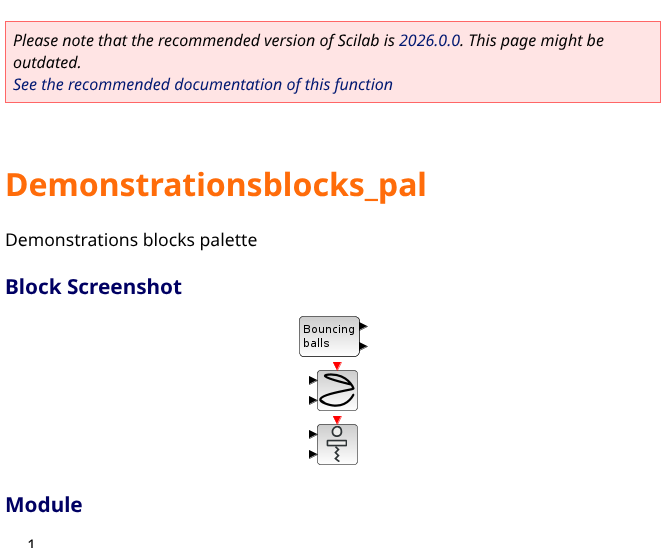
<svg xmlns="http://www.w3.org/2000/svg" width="666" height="548">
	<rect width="100%" height="100%" fill="#FFFFFF" />
	<rect x="5.5" y="21.5" width="655" height="81" fill="#FFE4E4" stroke="#FF6666" />
	<text x="13" y="46" font-family="Noto Sans" font-size="16" font-style="italic" fill="#000000">Please note that the recommended version of Scilab is</text>
	<text x="399" y="46" font-family="Noto Sans" font-size="16" font-style="italic" fill="#001871">2026.0.0</text>
	<g font-family="Noto Sans" font-size="16" font-style="italic" fill="#000000">
		<text x="460" y="46">. This page might be</text>
		<text x="13" y="68">outdated.</text>
	</g>
	<text x="13" y="90" font-family="Noto Sans" font-size="16" font-style="italic" fill="#001871">See the recommended documentation of this function</text>
	<text x="5" y="196" font-family="Noto Sans" font-size="32" font-weight="700" fill="#FF6C0A">Demonstrationsblocks_pal</text>
	<text x="5" y="246" font-family="Noto Sans" font-size="17.6" fill="#000000">Demonstrations blocks palette</text>
	<text x="5" y="294" font-family="Noto Sans" font-size="20.75" font-weight="700" fill="#000063">Block Screenshot</text>
	<image x="299" y="316" width="69" height="41" href="assets/img1.png" />
	<image x="309" y="362" width="49" height="49" href="assets/img2.png" />
	<image x="309" y="416" width="49" height="49" href="assets/img3.png" />
	<text x="5" y="512" font-family="Noto Sans" font-size="20.75" font-weight="700" fill="#000063">Module</text>
	<text x="27" y="551" font-family="Noto Sans" font-size="16" fill="#000000">1</text>
</svg>
